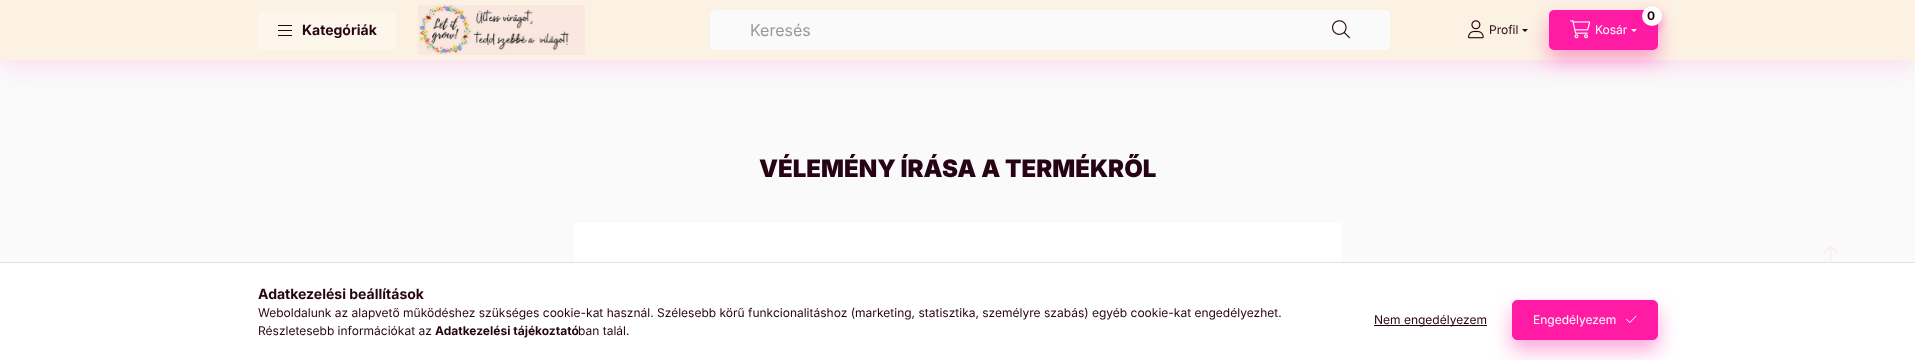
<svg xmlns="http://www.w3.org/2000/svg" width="1915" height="360">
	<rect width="100%" height="100%" fill="#FAFAFA" />
	<rect x="0" y="0" width="1915" height="60" fill="#FF1BA4" fill-opacity="0.2" filter="blur(15px)" />
	<rect x="0" y="0" width="1915" height="60" fill="#FCF2E3" />
	<rect x="258" y="11" width="138" height="39" rx="5" fill="#FDF6EB" />
	<rect x="278" y="25" width="14" height="1" fill="#260413" />
	<rect x="278" y="30" width="14" height="1" fill="#260413" />
	<rect x="278" y="35" width="14" height="1" fill="#260413" />
	<text x="302" y="35" font-family="Inter" font-size="14" font-weight="700" fill="#260413">Kategóriák</text>
	<image x="418" y="5" width="167" height="50" href="assets/img1.png" />
	<rect x="710" y="10" width="680" height="40" rx="5" fill="#FAFAFA" />
	<text x="750" y="36" font-family="Inter" font-size="16" fill="#999999">Keresés</text>
	<image x="1332" y="20" width="18" height="19" href="assets/img2.png" />
	<image x="1468" y="20" width="16" height="19" href="assets/img3.png" />
	<text x="1489" y="34" font-family="Inter" font-size="12" fill="#260413">Profil</text>
	<rect x="1549" y="20" width="109" height="40" rx="5" fill="#FF1BA4" fill-opacity="0.4" filter="blur(10px)" />
	<path d="M1522 29H1528L1525 32Z" fill="#260413" />
	<rect x="1549" y="10" width="109" height="40" rx="5" fill="#FF1BA4" />
	<rect x="1642" y="11" width="20" height="20" rx="10" fill="#FF1BA4" fill-opacity="0.4" filter="blur(5px)" />
	<circle cx="1652" cy="16" r="10" fill="#FFFFFF" />
	<text x="1647" y="20" font-family="Inter" font-size="12" font-weight="700" fill="#260413">0</text>
	<image x="1570" y="20" width="21" height="19" href="assets/img4.png" />
	<text x="1595" y="34" font-family="Inter" font-size="12" fill="#FFFFFF">Kosár</text>
	<path d="M1631 29H1637L1634 32Z" fill="#FFFFFF" />
	<text x="759" y="177" font-family="Inter" font-size="24" font-weight="900" fill="#260413">VÉLEMÉNY ÍRÁSA A TERMÉKRŐL</text>
	<rect x="574" y="223" width="768" height="39" fill="#FFFFFF" />
	<image x="1823" y="246" width="15" height="16" href="assets/img5.png" />
	<rect x="0" y="263" width="1915" height="97" fill="#FFFFFF" />
	<rect x="0" y="262" width="1915" height="1" fill="#E1E1E1" />
	<text x="258" y="299" font-family="Inter" font-size="14" font-weight="700" fill="#260413">Adatkezelési beállítások</text>
	<g font-family="Inter" font-size="12" fill="#260413">
		<text x="258" y="317">Weboldalunk az alapvető működéshez szükséges cookie-kat használ. Szélesebb körű funkcionalitáshoz (marketing, statisztika, személyre szabás) egyéb cookie-kat engedélyezhet.</text>
		<text x="258" y="335">Részletesebb információkat az</text>
	</g>
	<text x="435" y="335" font-family="Inter" font-size="12" font-weight="700" fill="#260413">Adatkezelési tájékoztató</text>
	<text x="578" y="335" font-family="Inter" font-size="12" fill="#260413">ban talál.</text>
	<rect x="1374" y="325" width="113" height="1" fill="#260413" />
	<text x="1374" y="324" font-family="Inter" font-size="12" fill="#260413">Nem engedélyezem</text>
	<rect x="1512" y="310" width="146" height="40" rx="5" fill="#FF1BA4" fill-opacity="0.4" filter="blur(10px)" />
	<rect x="1512.5" y="300.5" width="145" height="39" rx="4.5" fill="#FF1BA4" stroke="#FF1BA4" />
	<text x="1533" y="324" font-family="Inter" font-size="12" fill="#FFFFFF">Engedélyezem</text>
	<image x="1626" y="315" width="11" height="8" href="assets/img6.png" />
</svg>
